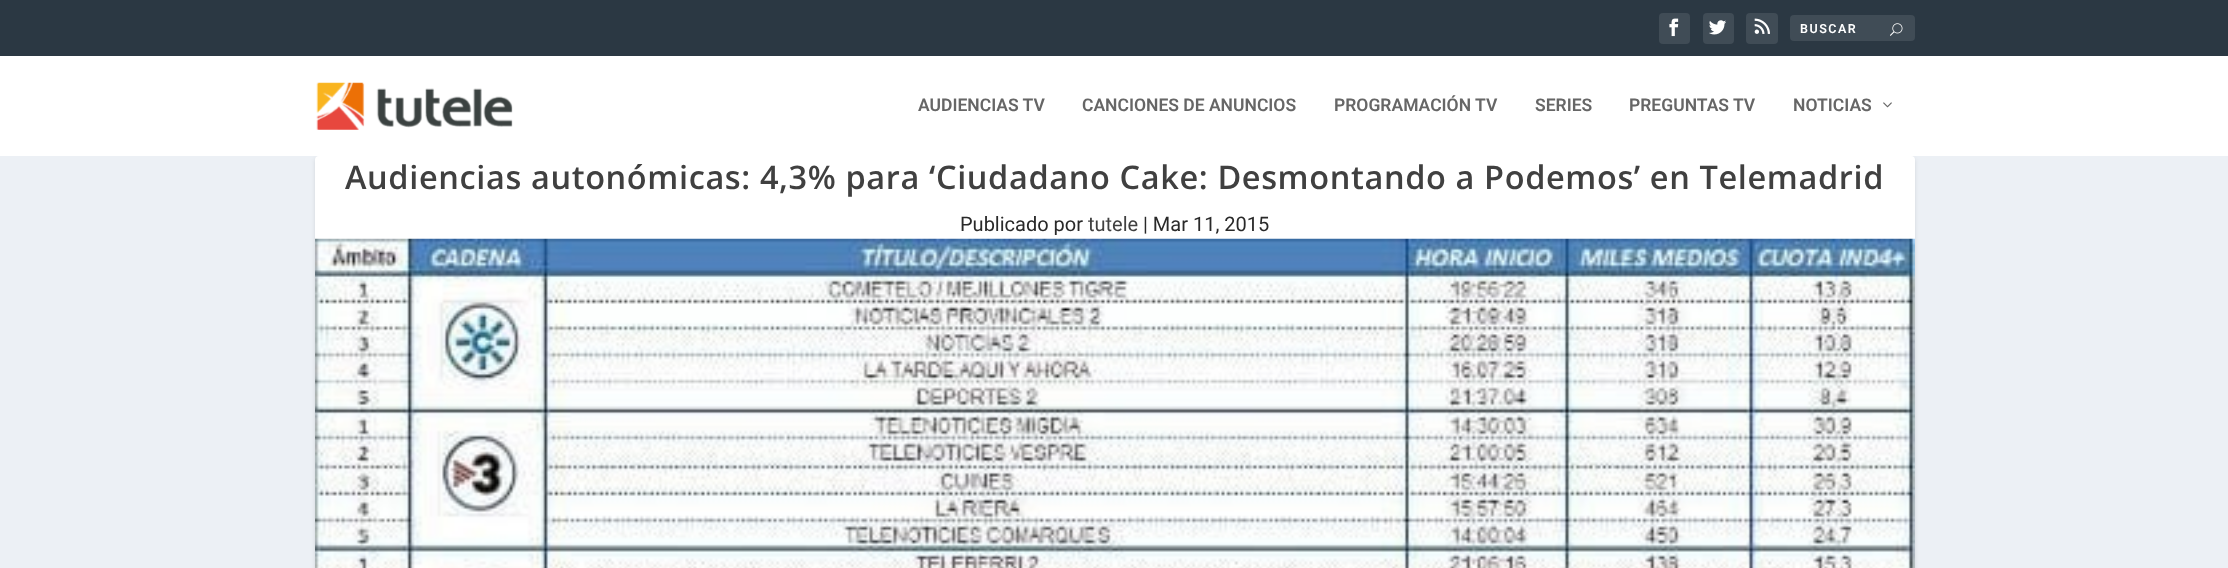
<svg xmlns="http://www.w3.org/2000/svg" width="2228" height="568">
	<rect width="100%" height="100%" fill="#ECF0F5" />
	<rect x="0" y="0" width="2228" height="56" fill="#2B3843" />
	<rect x="1659" y="13" width="31" height="31" rx="4" fill="#404C56" />
	<image x="1669" y="18" width="10" height="19" href="assets/img1.png" />
	<rect x="1703" y="13" width="31" height="31" rx="4" fill="#404C56" />
	<image x="1709" y="20" width="17" height="15" href="assets/img2.png" />
	<rect x="1746" y="13" width="32" height="31" rx="4" fill="#404C56" />
	<image x="1754" y="18" width="16" height="16" href="assets/img3.png" />
	<rect x="1790" y="15" width="125" height="26" rx="4" fill="#404C56" />
	<text x="1800" y="33" font-family="Roboto" font-size="12.5" font-weight="600" letter-spacing="1.5" fill="#FFFFFF">BUSCAR</text>
	<image x="1890" y="23" width="13" height="13" href="assets/img4.png" />
	<rect x="315" y="158" width="1600" height="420" rx="4" fill="#000000" fill-opacity="0.1" filter="blur(2px)" />
	<rect x="0" y="56" width="2228" height="100" fill="#FFFFFF" />
	<image x="316" y="82" width="197" height="48" href="assets/img5.png" />
	<g font-family="Roboto" font-size="17.5" font-weight="600" fill="#666666">
		<text x="918" y="111">AUDIENCIAS TV</text>
		<text x="1082" y="111">CANCIONES DE ANUNCIOS</text>
		<text x="1334" y="111">PROGRAMACIÓN TV</text>
		<text x="1535" y="111">SERIES</text>
		<text x="1629" y="111">PREGUNTAS TV</text>
		<text x="1793" y="111">NOTICIAS</text>
	</g>
	<image x="1883" y="102" width="9" height="6" href="assets/img6.png" />
	<rect x="315" y="156" width="1600" height="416" rx="4" fill="#FFFFFF" />
	<text x="345" y="189" font-family="Open Sans" font-size="32.5" font-weight="600" letter-spacing="0.62" fill="#404040">Audiencias autonómicas: 4,3% para ‘Ciudadano Cake: Desmontando a Podemos’ en Telemadrid</text>
	<text x="960" y="231" font-family="Roboto" font-size="20" fill="#292929">Publicado por</text>
	<text x="1088" y="231" font-family="Roboto" font-size="20" fill="#404040">tutele</text>
	<text x="1143" y="231" font-family="Roboto" font-size="20" fill="#292929">| Mar 11, 2015</text>
	<image x="315" y="238" width="1600" height="330" href="assets/img7.png" />
</svg>
